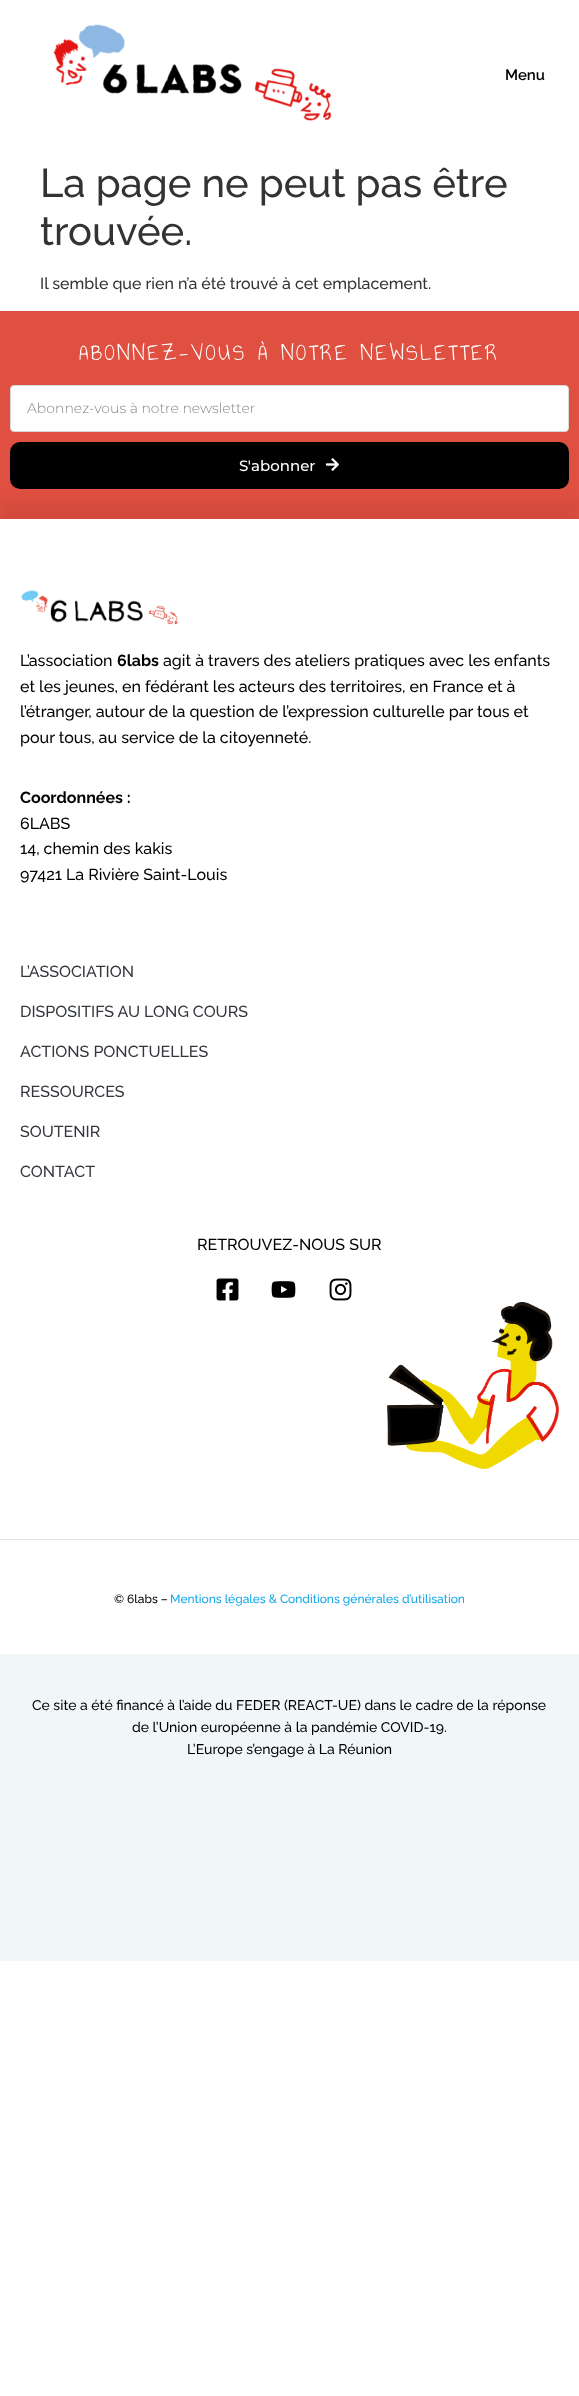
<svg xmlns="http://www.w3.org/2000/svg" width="579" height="2396">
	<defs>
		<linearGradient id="g1" gradientUnits="userSpaceOnUse" x1="289" y1="0" x2="290" y2="1961"><stop offset="0.47" stop-color="#FFFFFF" /><stop offset="0.68" stop-color="#F1F7F9" /></linearGradient>
	</defs>
	<rect width="100%" height="100%" fill="#FFFFFF" />
	<rect x="0" y="995" width="579" height="966" fill="url(#g1)" />
	<image x="53" y="24" width="279" height="97" href="assets/img1.png" />
	<text x="505" y="80" font-family="Raleway" font-size="15" font-weight="600" fill="#000000">Menu</text>
	<g font-family="Raleway" font-size="40" font-weight="500" fill="#333333">
		<text x="40" y="197">La page ne peut pas être</text>
		<text x="40" y="245">trouvée.</text>
	</g>
	<text x="40" y="289" font-family="Raleway" font-size="16" font-weight="500" fill="#333333">Il semble que rien n’a été trouvé à cet emplacement.</text>
	<rect x="0" y="311" width="579" height="208" fill="#DF5040" />
	<text x="79" y="360" font-family="Annie Use Your Telescope" font-size="24" letter-spacing="2.4" fill="#FFFFFF">ABONNEZ-VOUS À NOTRE NEWSLETTER</text>
	<rect x="10.5" y="385.5" width="558" height="46" rx="3.5" fill="#FFFFFF" stroke="#D8D8D8" />
	<text x="27" y="413" font-family="Montserrat" font-size="14" font-weight="300" fill="#868686">Abonnez-vous à notre newsletter</text>
	<rect x="10" y="442" width="559" height="47" rx="10" fill="#000000" />
	<text x="239" y="471" font-family="Montserrat" font-size="15" font-weight="500" fill="#FFFFFF">S'abonner</text>
	<image x="325" y="458" width="14" height="13" href="assets/img2.png" />
	<rect x="0" y="501" width="579" height="1135" fill="#000000" fill-opacity="0.05" filter="blur(5px)" />
	<rect x="0" y="519" width="579" height="1135" fill="#FFFFFF" />
	<image x="21" y="590" width="157" height="35" href="assets/img3.png" />
	<text x="20" y="666" font-family="Raleway" font-size="16" font-weight="500" fill="#000000">L’association</text>
	<text x="117" y="666" font-family="Raleway" font-size="16" font-weight="700" fill="#000000">6labs</text>
	<g font-family="Raleway" font-size="16" font-weight="500" fill="#000000">
		<text x="163" y="666">agit à travers des ateliers pratiques avec les enfants</text>
		<text x="20" y="692">et les jeunes, en fédérant les acteurs des territoires, en France et à</text>
		<text x="20" y="717">l’étranger, autour de la question de l’expression culturelle par tous et</text>
		<text x="20" y="743">pour tous, au service de la citoyenneté.</text>
	</g>
	<text x="20" y="803" font-family="Raleway" font-size="16" font-weight="700" fill="#000000">Coordonnées :</text>
	<g font-family="Raleway" font-size="16" font-weight="500" fill="#000000">
		<text x="20" y="829">6LABS</text>
		<text x="20" y="854">14, chemin des kakis</text>
		<text x="20" y="880">97421 La Rivière Saint-Louis</text>
	</g>
	<g font-family="Raleway" font-size="16" font-weight="500" fill="#33373D">
		<text x="20" y="977">L’ASSOCIATION</text>
		<text x="20" y="1017">DISPOSITIFS AU LONG COURS</text>
		<text x="20" y="1057">ACTIONS PONCTUELLES</text>
		<text x="20" y="1097">RESSOURCES</text>
		<text x="20" y="1137">SOUTENIR</text>
		<text x="20" y="1177">CONTACT</text>
	</g>
	<text x="197" y="1250" font-family="Raleway" font-size="16" font-weight="500" fill="#000000">RETROUVEZ-NOUS SUR</text>
	<image x="216" y="1278" width="23" height="23" href="assets/img4.png" />
	<image x="271" y="1281" width="25" height="17" href="assets/img5.png" />
	<image x="329" y="1278" width="23" height="23" href="assets/img6.png" />
	<image x="387" y="1302" width="172" height="167" href="assets/img7.png" />
	<rect x="0" y="1539" width="579" height="1" fill="#E3E3E3" />
	<text x="114" y="1603" font-family="Raleway" font-size="12" font-weight="500" fill="#000000">© 6labs –</text>
	<text x="170" y="1603" font-family="Raleway" font-size="12" font-weight="500" fill="#14A8E9">Mentions légales &amp; Conditions générales d’utilisation</text>
	<g font-family="Raleway" font-size="14" font-weight="500" fill="#000000">
		<text x="32" y="1710">Ce site a été financé à l’aide du FEDER (REACT-UE) dans le cadre de la réponse</text>
		<text x="132" y="1732">de l’Union européenne à la pandémie COVID-19.</text>
		<text x="187" y="1754">L’Europe s’engage à La Réunion</text>
	</g>
</svg>
